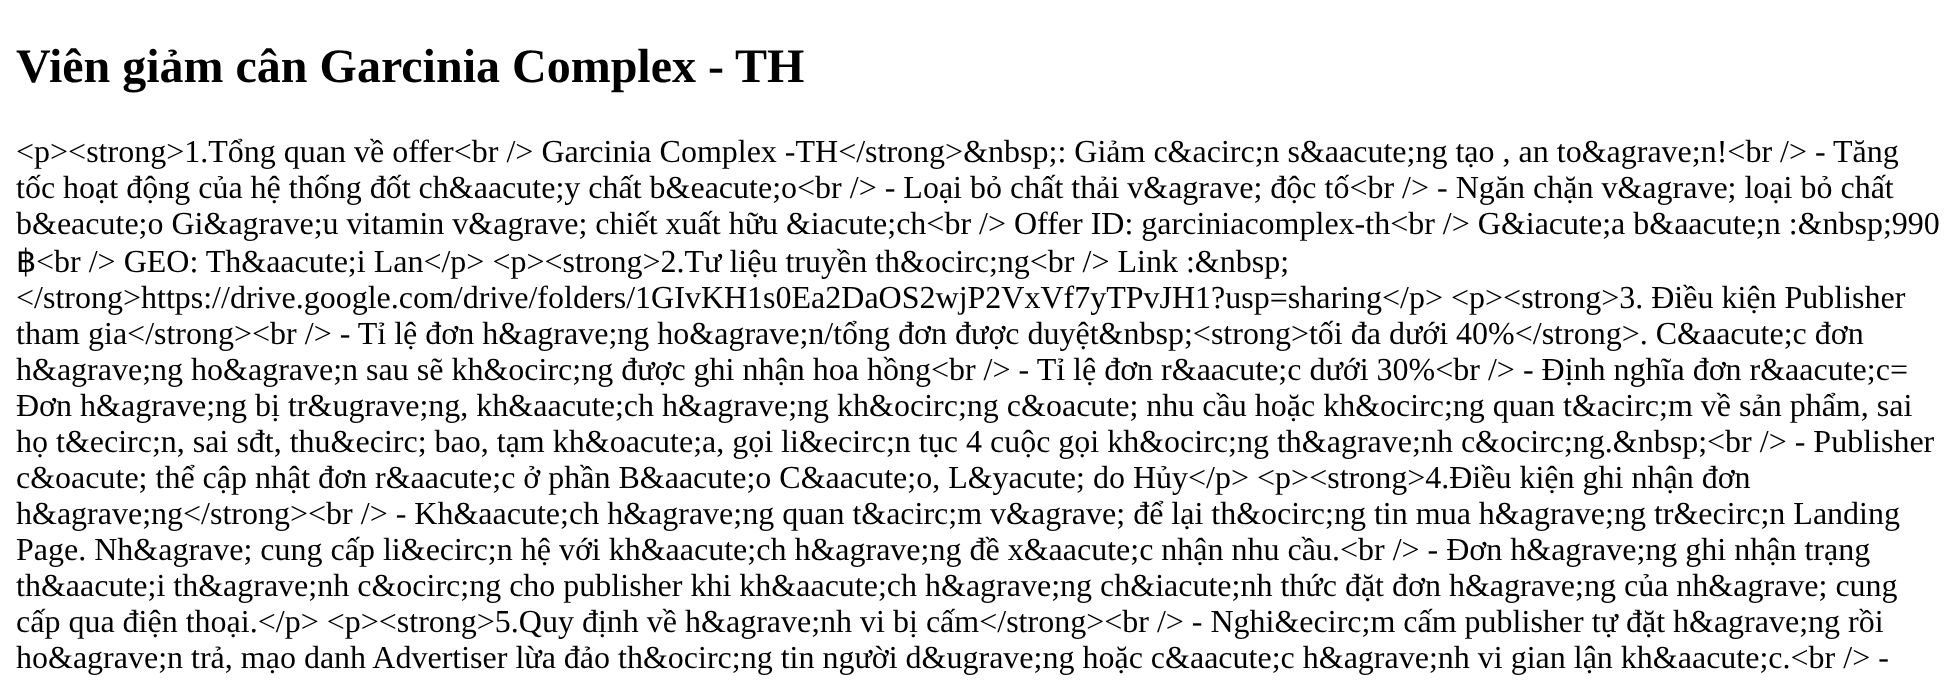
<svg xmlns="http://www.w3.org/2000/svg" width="1956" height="692">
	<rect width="100%" height="100%" fill="#FFFFFF" />
	<text x="16" y="82" font-family="Liberation Serif" font-size="48" font-weight="700" fill="#000000">Viên giảm cân Garcinia Complex - TH</text>
	<g font-family="Liberation Serif" font-size="32" fill="#000000">
		<text x="16" y="162">&lt;p&gt;&lt;strong&gt;1.Tổng quan về offer&lt;br /&gt; Garcinia Complex -TH&lt;/strong&gt;&amp;nbsp;: Giảm c&amp;acirc;n s&amp;aacute;ng tạo , an to&amp;agrave;n!&lt;br /&gt; - Tăng</text>
		<text x="16" y="198">tốc hoạt động của hệ thống đốt ch&amp;aacute;y chất b&amp;eacute;o&lt;br /&gt; - Loại bỏ chất thải v&amp;agrave; độc tố&lt;br /&gt; - Ngăn chặn v&amp;agrave; loại bỏ chất</text>
		<text x="16" y="234">b&amp;eacute;o Gi&amp;agrave;u vitamin v&amp;agrave; chiết xuất hữu &amp;iacute;ch&lt;br /&gt; Offer ID: garciniacomplex-th&lt;br /&gt; G&amp;iacute;a b&amp;aacute;n :&amp;nbsp;990</text>
	</g>
	<text x="16" y="272" font-family="DejaVu Sans" font-size="32" fill="#000000">฿</text>
	<g font-family="Liberation Serif" font-size="32" fill="#000000">
		<text x="36" y="272">&lt;br /&gt; GEO: Th&amp;aacute;i Lan&lt;/p&gt; &lt;p&gt;&lt;strong&gt;2.Tư liệu truyền th&amp;ocirc;ng&lt;br /&gt; Link :&amp;nbsp;</text>
		<text x="16" y="308">&lt;/strong&gt;https://drive.google.com/drive/folders/1GIvKH1s0Ea2DaOS2wjP2VxVf7yTPvJH1?usp=sharing&lt;/p&gt; &lt;p&gt;&lt;strong&gt;3. Điều kiện Publisher</text>
		<text x="16" y="344">tham gia&lt;/strong&gt;&lt;br /&gt; - Tỉ lệ đơn h&amp;agrave;ng ho&amp;agrave;n/tổng đơn được duyệt&amp;nbsp;&lt;strong&gt;tối đa dưới 40%&lt;/strong&gt;. C&amp;aacute;c đơn</text>
		<text x="16" y="380">h&amp;agrave;ng ho&amp;agrave;n sau sẽ kh&amp;ocirc;ng được ghi nhận hoa hồng&lt;br /&gt; - Tỉ lệ đơn r&amp;aacute;c dưới 30%&lt;br /&gt; - Định nghĩa đơn r&amp;aacute;c=</text>
		<text x="16" y="416">Đơn h&amp;agrave;ng bị tr&amp;ugrave;ng, kh&amp;aacute;ch h&amp;agrave;ng kh&amp;ocirc;ng c&amp;oacute; nhu cầu hoặc kh&amp;ocirc;ng quan t&amp;acirc;m về sản phẩm, sai</text>
		<text x="16" y="452">họ t&amp;ecirc;n, sai sđt, thu&amp;ecirc; bao, tạm kh&amp;oacute;a, gọi li&amp;ecirc;n tục 4 cuộc gọi kh&amp;ocirc;ng th&amp;agrave;nh c&amp;ocirc;ng.&amp;nbsp;&lt;br /&gt; - Publisher</text>
		<text x="16" y="488">c&amp;oacute; thể cập nhật đơn r&amp;aacute;c ở phần B&amp;aacute;o C&amp;aacute;o, L&amp;yacute; do Hủy&lt;/p&gt; &lt;p&gt;&lt;strong&gt;4.Điều kiện ghi nhận đơn</text>
		<text x="16" y="524">h&amp;agrave;ng&lt;/strong&gt;&lt;br /&gt; - Kh&amp;aacute;ch h&amp;agrave;ng quan t&amp;acirc;m v&amp;agrave; để lại th&amp;ocirc;ng tin mua h&amp;agrave;ng tr&amp;ecirc;n Landing</text>
		<text x="16" y="560">Page. Nh&amp;agrave; cung cấp li&amp;ecirc;n hệ với kh&amp;aacute;ch h&amp;agrave;ng đề x&amp;aacute;c nhận nhu cầu.&lt;br /&gt; - Đơn h&amp;agrave;ng ghi nhận trạng</text>
		<text x="16" y="596">th&amp;aacute;i th&amp;agrave;nh c&amp;ocirc;ng cho publisher khi kh&amp;aacute;ch h&amp;agrave;ng ch&amp;iacute;nh thức đặt đơn h&amp;agrave;ng của nh&amp;agrave; cung</text>
		<text x="16" y="632">cấp qua điện thoại.&lt;/p&gt; &lt;p&gt;&lt;strong&gt;5.Quy định về h&amp;agrave;nh vi bị cấm&lt;/strong&gt;&lt;br /&gt; - Nghi&amp;ecirc;m cấm publisher tự đặt h&amp;agrave;ng rồi</text>
		<text x="16" y="668">ho&amp;agrave;n trả, mạo danh Advertiser lừa đảo th&amp;ocirc;ng tin người d&amp;ugrave;ng hoặc c&amp;aacute;c h&amp;agrave;nh vi gian lận kh&amp;aacute;c.&lt;br /&gt; -</text>
	</g>
</svg>
